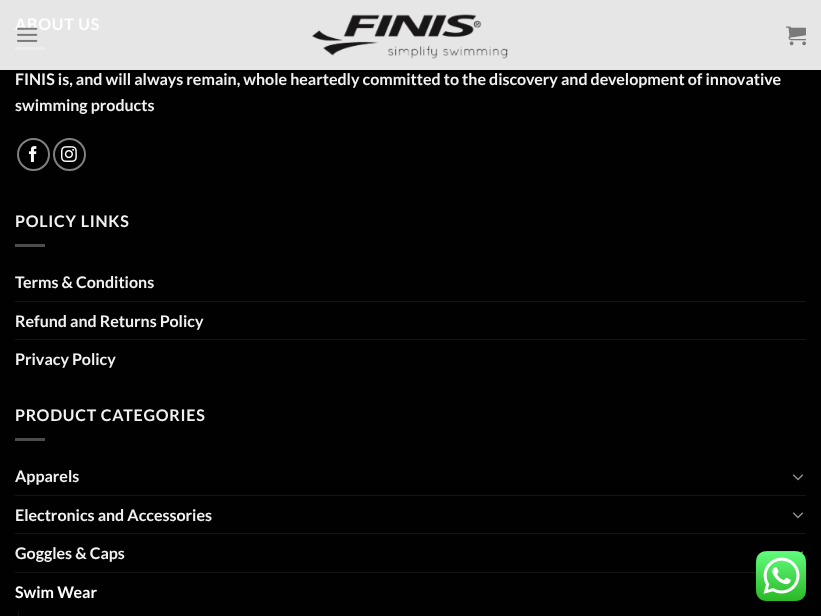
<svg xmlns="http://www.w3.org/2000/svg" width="821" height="616">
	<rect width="100%" height="100%" fill="#010101" />
	<rect x="0" y="0" width="821" height="70" fill="#E6E6E6" />
	<text x="15" y="30" font-family="Lato" font-size="16" font-weight="700" letter-spacing="0.75" fill="#FEFEFE">ABOUT US</text>
	<image x="17" y="27" width="21" height="15" href="assets/img1.png" />
	<image x="312" y="14" width="196" height="45" href="assets/img2.png" />
	<image x="786" y="26" width="20" height="20" href="assets/img3.png" />
	<rect x="15" y="47" width="30" height="3" fill="#EDEDED" />
	<g font-family="Lato" font-size="16" font-weight="700" fill="#F1F1F1">
		<text x="15" y="85">FINIS is, and will always remain, whole heartedly committed to the discovery and development of innovative</text>
		<text x="15" y="111">swimming products</text>
	</g>
	<circle cx="33.5" cy="154.5" r="15.5" fill="none" stroke="#808080" stroke-width="2" />
	<image x="28" y="146" width="9" height="16" href="assets/img4.png" />
	<circle cx="69.5" cy="154.5" r="15.5" fill="none" stroke="#808080" stroke-width="2" />
	<image x="61" y="146" width="16" height="16" href="assets/img5.png" />
	<text x="15" y="227" font-family="Lato" font-size="16" font-weight="700" letter-spacing="0.75" fill="#F1F1F1">POLICY LINKS</text>
	<rect x="15" y="244" width="30" height="3" fill="#4D4D4D" />
	<text x="15" y="288" font-family="Lato" font-size="16" font-weight="700" fill="#F1F1F1">Terms &amp; Conditions</text>
	<rect x="15" y="301" width="791" height="1" fill="#151515" />
	<text x="15" y="327" font-family="Lato" font-size="16" font-weight="700" fill="#F1F1F1">Refund and Returns Policy</text>
	<rect x="15" y="339" width="791" height="1" fill="#151515" />
	<text x="15" y="365" font-family="Lato" font-size="16" font-weight="700" fill="#F1F1F1">Privacy Policy</text>
	<text x="15" y="421" font-family="Lato" font-size="16" font-weight="700" letter-spacing="0.75" fill="#F1F1F1">PRODUCT CATEGORIES</text>
	<rect x="15" y="438" width="30" height="3" fill="#4D4D4D" />
	<text x="15" y="482" font-family="Lato" font-size="16" font-weight="700" fill="#F1F1F1">Apparels</text>
	<image x="792" y="474" width="12" height="7" href="assets/img6.png" />
	<rect x="15" y="495" width="791" height="1" fill="#151515" />
	<text x="15" y="521" font-family="Lato" font-size="16" font-weight="700" fill="#F1F1F1">Electronics and Accessories</text>
	<image x="792" y="512" width="12" height="7" href="assets/img6.png" />
	<rect x="15" y="533" width="791" height="1" fill="#151515" />
	<text x="15" y="559" font-family="Lato" font-size="16" font-weight="700" fill="#F1F1F1">Goggles &amp; Caps</text>
	<image x="793" y="551" width="11" height="3" href="assets/img7.png" />
	<rect x="15" y="572" width="741" height="1" fill="#151515" />
	<text x="15" y="598" font-family="Lato" font-size="16" font-weight="700" fill="#FEFEFE">Swim Wear</text>
	<rect x="18" y="611" width="1" height="5" fill="#151515" />
	<image x="756" y="551" width="50" height="50" href="assets/img8.png" />
</svg>
